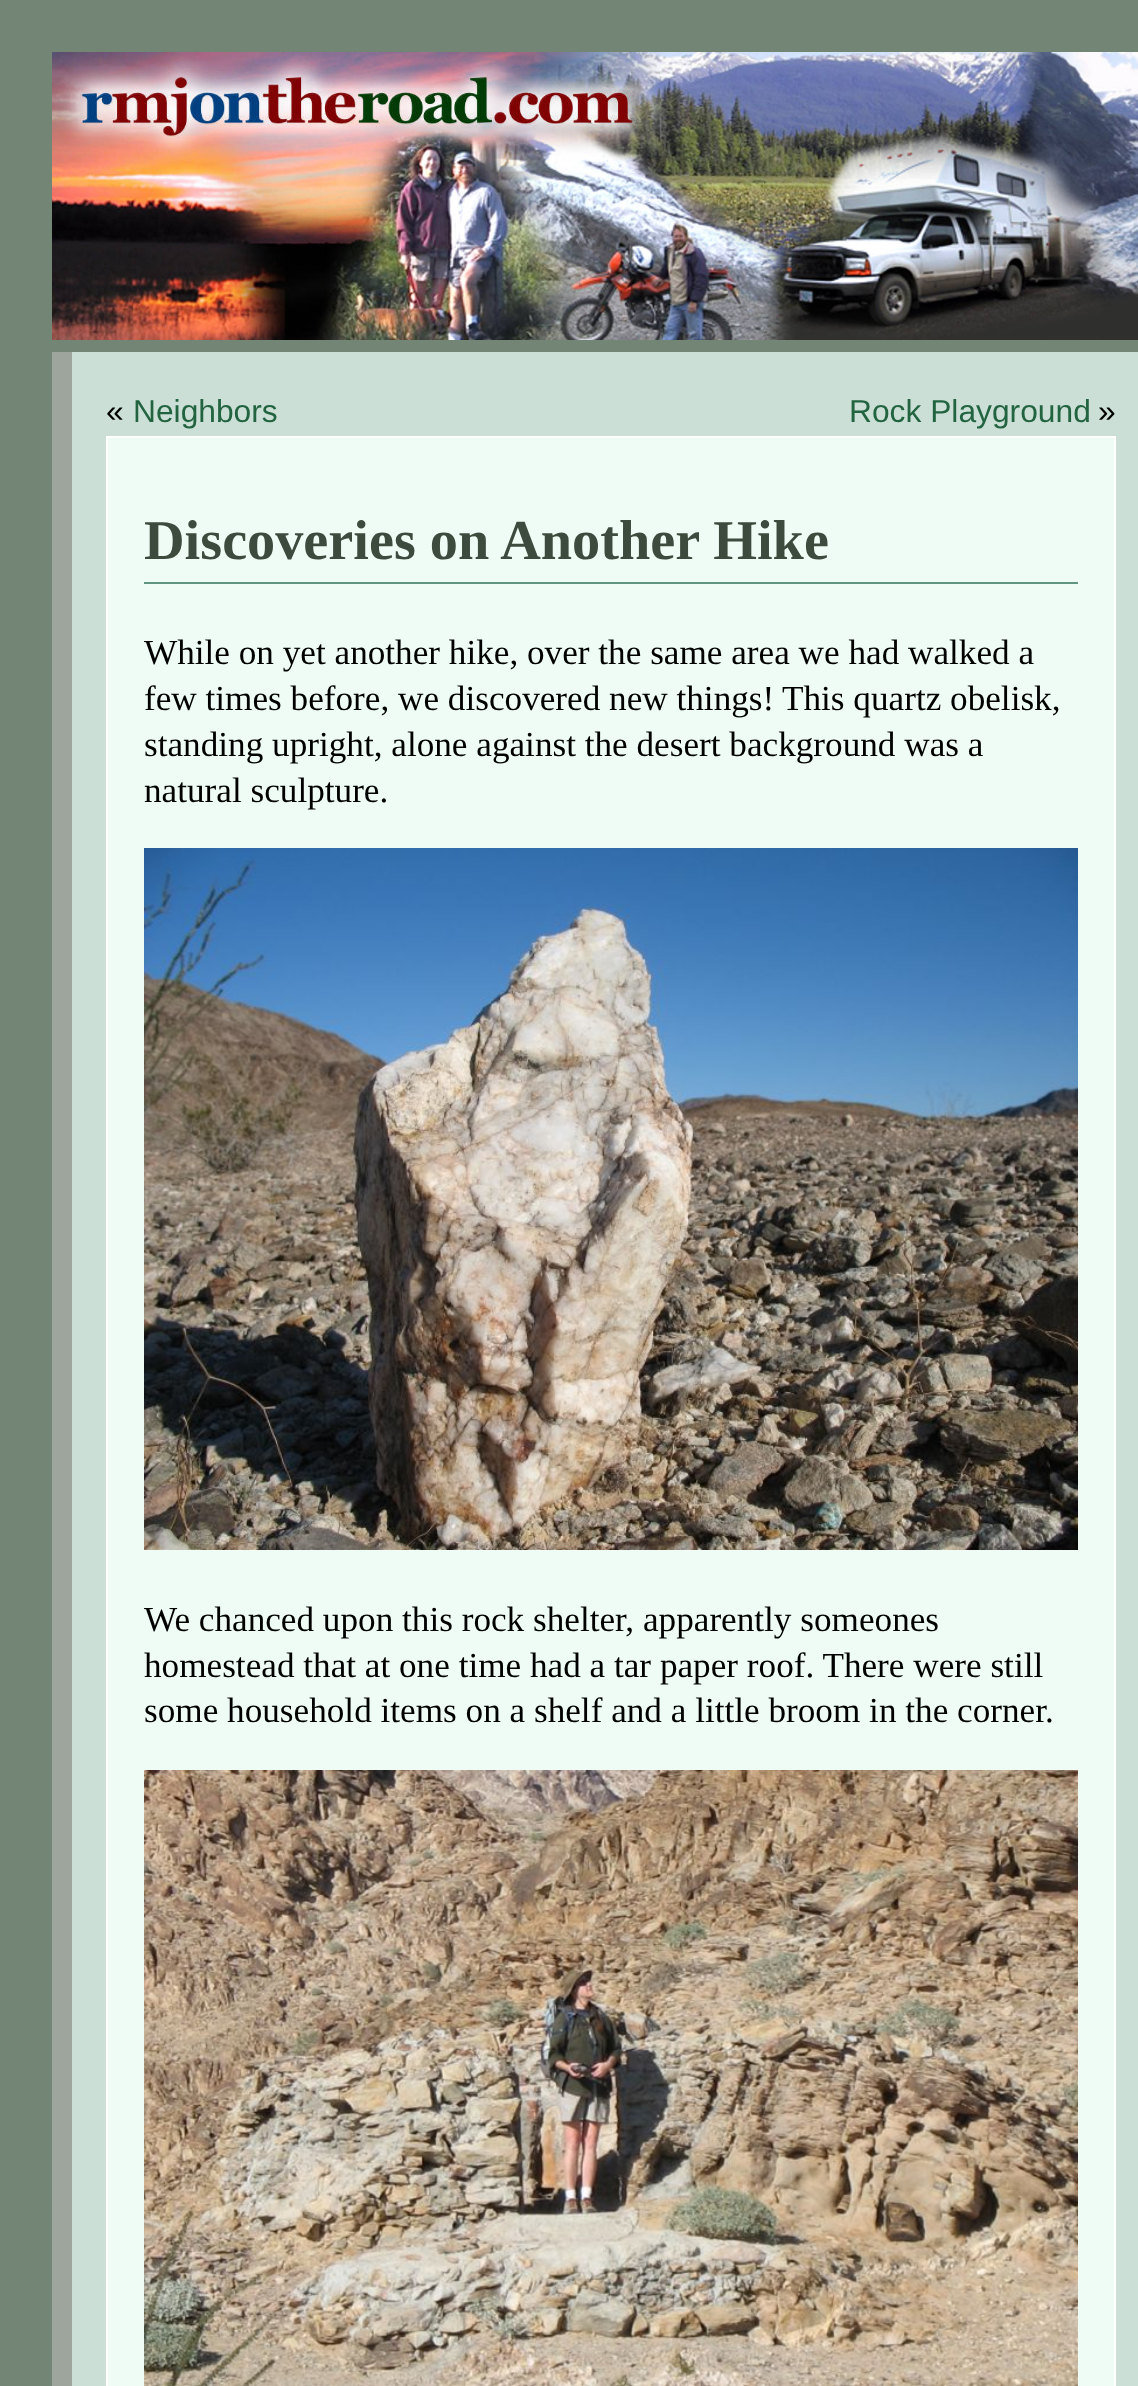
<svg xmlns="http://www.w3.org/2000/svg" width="1138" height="2386">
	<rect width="100%" height="100%" fill="#738575" />
	<image x="52" y="52" width="1086" height="288" href="assets/img1.png" />
	<rect x="72" y="352" width="1066" height="2034" fill="#CBDFD6" />
	<rect x="52" y="352" width="20" height="2034" fill="#9EA59C" />
	<text x="106" y="422" font-family="Liberation Sans" font-size="31.75" fill="#000000">«</text>
	<g font-family="Liberation Sans" font-size="31.75" fill="#236440">
		<text x="133" y="422">Neighbors</text>
		<text x="849" y="422">Rock Playground</text>
	</g>
	<text x="1098" y="422" font-family="Liberation Sans" font-size="31.75" fill="#000000">»</text>
	<rect x="107" y="437" width="1008" height="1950" fill="#EEFCF5" stroke="#FFFFFF" stroke-width="2" />
	<rect x="144" y="582" width="934" height="2" fill="#609582" />
	<text x="144" y="559" font-family="Liberation Serif" font-size="56.25" font-weight="700" fill="#3C4B3D">Discoveries on Another Hike</text>
	<g font-family="Liberation Serif" font-size="35.2" fill="#000000">
		<text x="144" y="664">While on yet another hike, over the same area we had walked a</text>
		<text x="144" y="710">few times before, we discovered new things!</text>
		<text x="782" y="710">This quartz obelisk,</text>
		<text x="144" y="756">standing upright, alone against the desert background was a</text>
		<text x="144" y="802">natural sculpture.</text>
	</g>
	<image x="144" y="848" width="934" height="702" href="assets/img2.png" />
	<g font-family="Liberation Serif" font-size="35.2" fill="#000000">
		<text x="144" y="1631">We chanced upon this rock shelter, apparently someones</text>
		<text x="144" y="1677">homestead that at one time had a tar paper roof. There were still</text>
		<text x="144" y="1722">some household items on a shelf and a little broom in the corner.</text>
	</g>
	<image x="144" y="1770" width="934" height="616" href="assets/img3.png" />
</svg>
